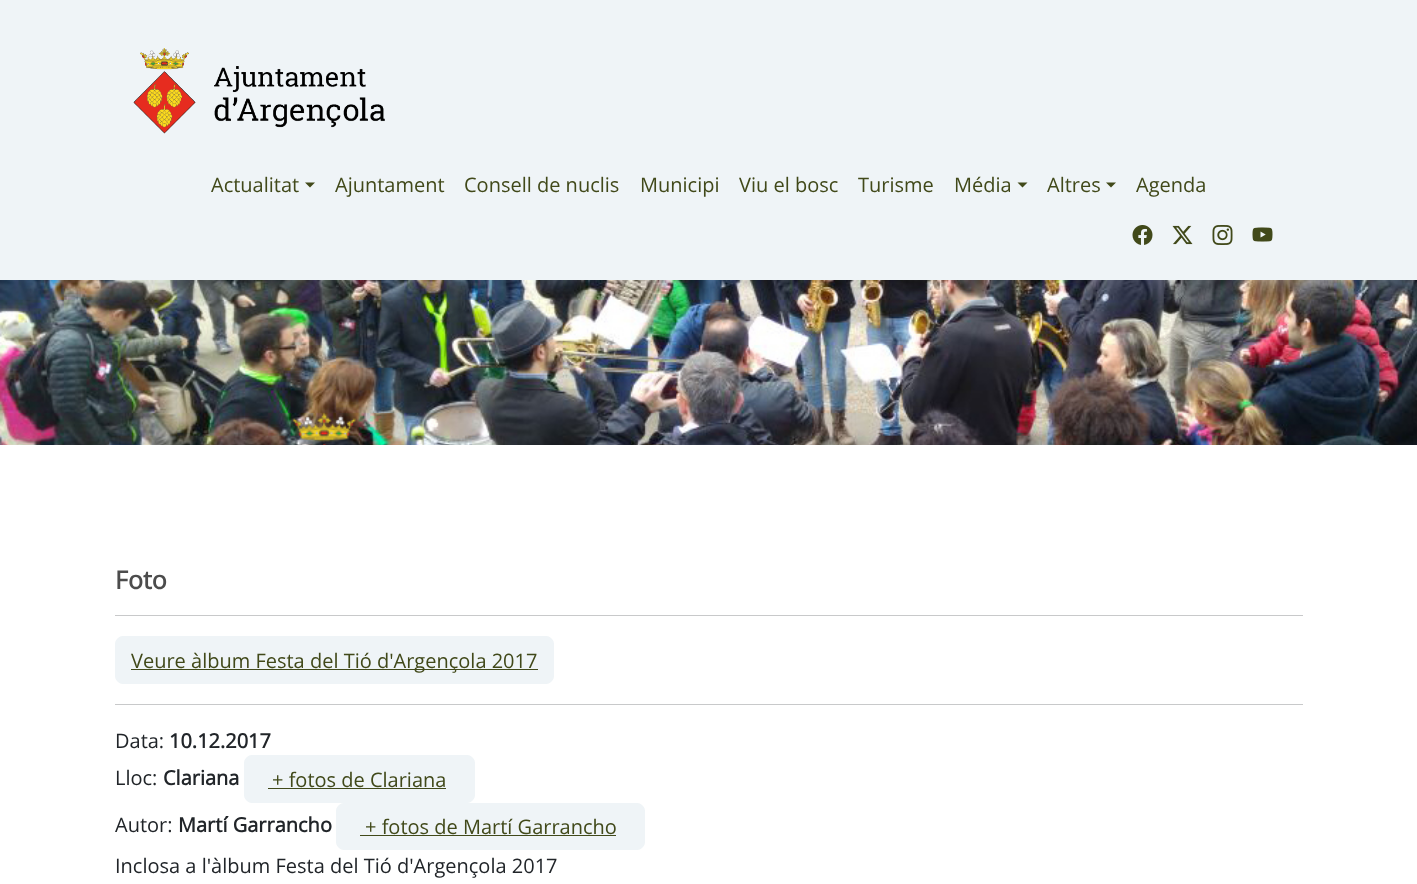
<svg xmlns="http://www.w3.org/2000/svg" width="1417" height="884">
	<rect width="100%" height="100%" fill="#FFFFFF" />
	<rect x="0" y="0" width="1417" height="280" fill="#EFF4F7" />
	<image x="133" y="48" width="252" height="86" href="assets/img1.png" />
	<text x="211" y="192" font-family="Open Sans" font-size="20" fill="#41491A">Actualitat</text>
	<path d="M305 182.5H315L310 187.5Z" fill="#41491A" />
	<g font-family="Open Sans" font-size="20" fill="#41491A">
		<text x="335" y="192">Ajuntament</text>
		<text x="464" y="192">Consell de nuclis</text>
		<text x="640" y="192">Municipi</text>
		<text x="739" y="192">Viu el bosc</text>
		<text x="858" y="192">Turisme</text>
		<text x="954" y="192">Média</text>
	</g>
	<path d="M1017.5 182.5H1027.5L1022.5 187.5Z" fill="#41491A" />
	<text x="1047" y="192" font-family="Open Sans" font-size="20" fill="#41491A">Altres</text>
	<path d="M1106 182.5H1116L1111 187.5Z" fill="#41491A" />
	<text x="1136" y="192" font-family="Open Sans" font-size="20" fill="#41491A">Agenda</text>
	<image x="1132" y="225" width="21" height="20" href="assets/img2.png" />
	<image x="1172" y="225" width="21" height="20" href="assets/img3.png" />
	<image x="1212" y="225" width="21" height="20" href="assets/img4.png" />
	<image x="1252" y="227" width="21" height="15" href="assets/img5.png" />
	<image x="0" y="280" width="1417" height="165" href="assets/img6.png" />
	<text x="115" y="589" font-family="Open Sans" font-size="25" font-weight="700" fill="#4C4C4C">Foto</text>
	<rect x="115" y="615" width="1188" height="1" fill="#C8C9CA" />
	<rect x="115.5" y="636.5" width="438" height="47" rx="7.5" fill="#EFF4F7" stroke="#EFF4F7" />
	<rect x="131" y="669" width="407" height="1" fill="#41491A" />
	<text x="131" y="668" font-family="Open Sans" font-size="20" fill="#41491A">Veure àlbum Festa del Tió d'Argençola 2017</text>
	<rect x="115" y="704" width="1188" height="1" fill="#C8C9CA" />
	<text x="115" y="748" font-family="Open Sans" font-size="20" fill="#212529">Data:</text>
	<text x="169" y="748" font-family="Open Sans" font-size="20" font-weight="700" fill="#212529">10.12.2017</text>
	<text x="115" y="785" font-family="Open Sans" font-size="20" fill="#212529">Lloc:</text>
	<text x="163" y="785" font-family="Open Sans" font-size="20" font-weight="700" fill="#212529">Clariana</text>
	<rect x="244.5" y="755.5" width="230" height="47" rx="7.5" fill="#EFF4F7" stroke="#EFF4F7" />
	<text x="272" y="787" font-family="Open Sans" font-size="20" fill="#41491A">+ fotos de Clariana</text>
	<rect x="268" y="788" width="178" height="1" fill="#41491A" />
	<text x="115" y="832" font-family="Open Sans" font-size="20" fill="#212529">Autor:</text>
	<text x="178" y="832" font-family="Open Sans" font-size="20" font-weight="700" fill="#212529">Martí Garrancho</text>
	<rect x="336.5" y="803.5" width="308" height="46" rx="7.5" fill="#EFF4F7" stroke="#EFF4F7" />
	<text x="365" y="834" font-family="Open Sans" font-size="20" fill="#41491A">+ fotos de Martí Garrancho</text>
	<rect x="360" y="835" width="256" height="1" fill="#41491A" />
	<text x="115" y="873" font-family="Open Sans" font-size="20" fill="#212529">Inclosa a l'àlbum Festa del Tió d'Argençola 2017</text>
</svg>
